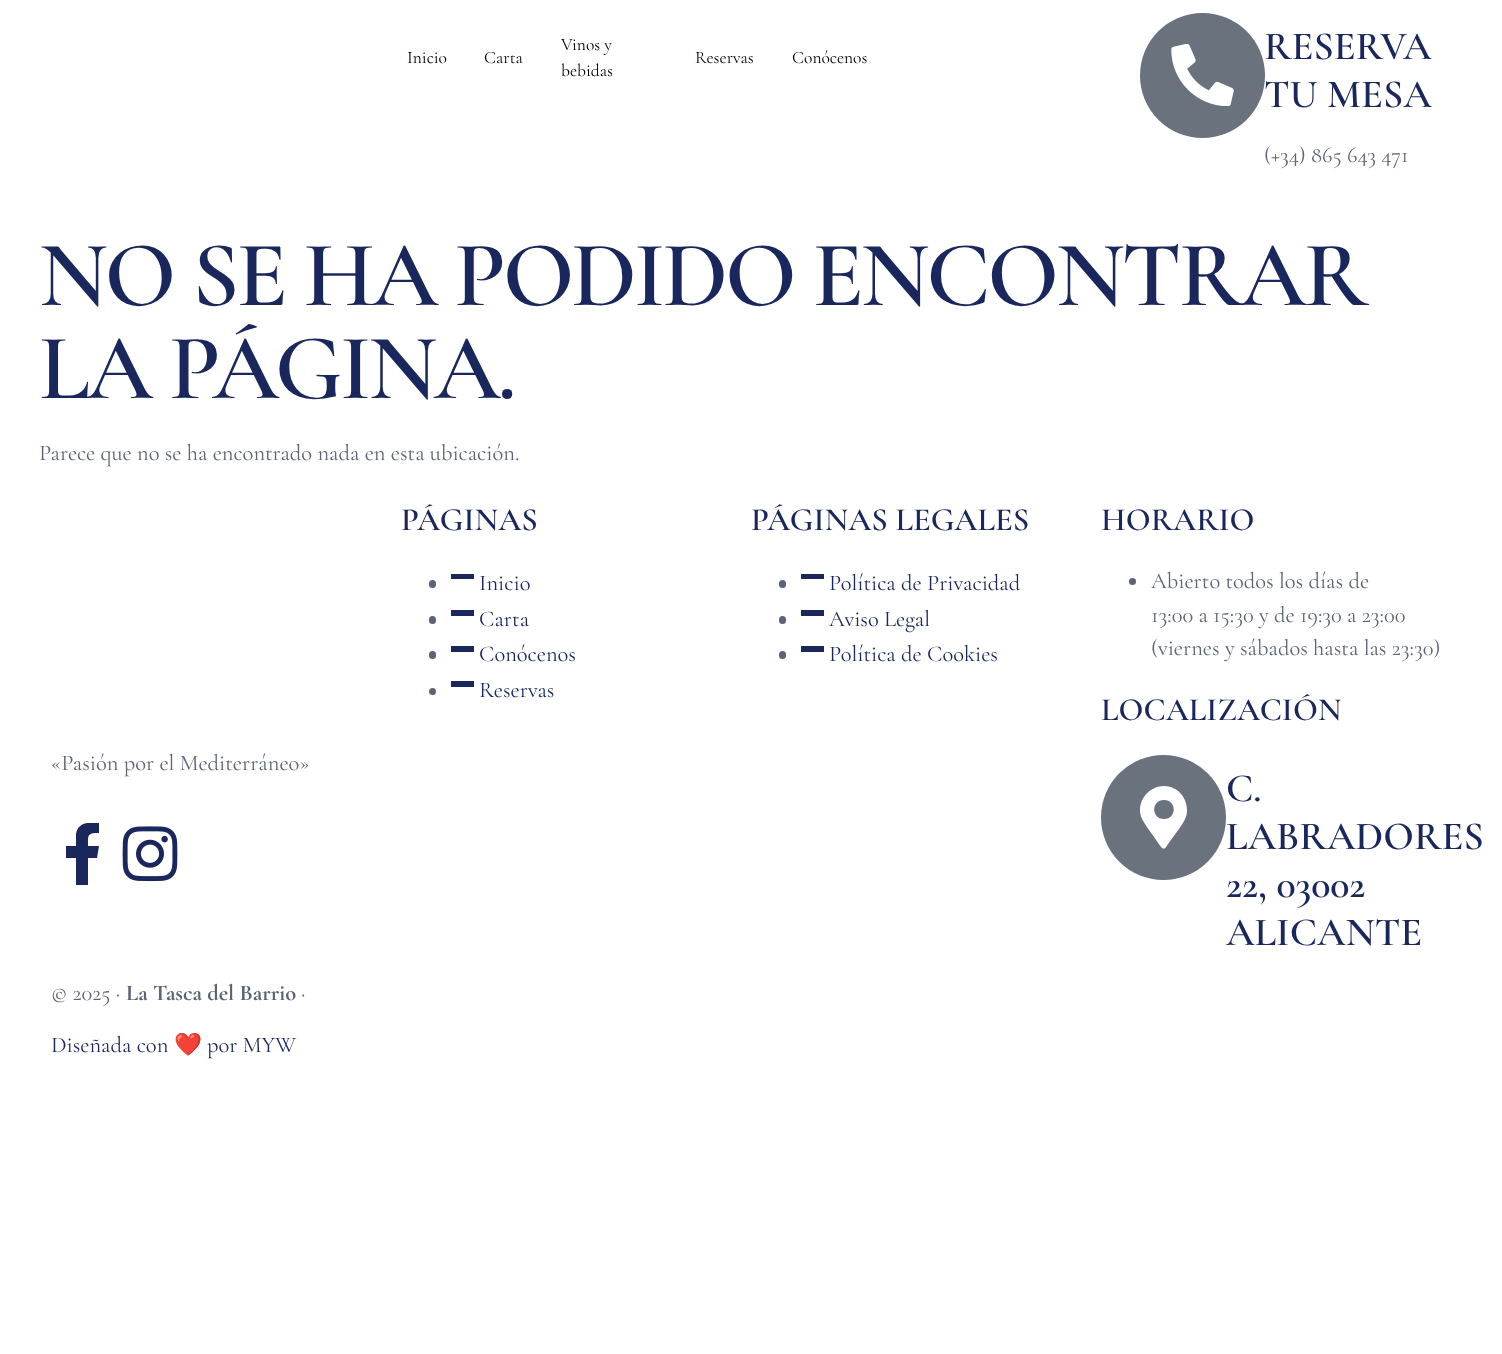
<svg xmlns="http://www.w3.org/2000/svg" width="1502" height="1354">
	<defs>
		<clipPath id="clip1"><rect x="51" y="823" width="63" height="62" /></clipPath>
	</defs>
	<rect width="100%" height="100%" fill="#FFFFFF" />
	<g font-family="Cormorant Garamond" font-size="17.5" fill="#000000">
		<text x="407" y="63">Inicio</text>
		<text x="484" y="63">Carta</text>
		<text x="561" y="50">Vinos y</text>
		<text x="561" y="76">bebidas</text>
		<text x="695" y="63">Reservas</text>
		<text x="792" y="63">Conócenos</text>
	</g>
	<circle cx="1202.5" cy="75.5" r="62.5" fill="#69727D" />
	<image x="1171" y="44" width="63" height="62" href="assets/img1.png" />
	<g font-family="Cormorant Garamond" font-size="40" font-weight="600" fill="#1A275D">
		<text x="1264" y="59">RESERVA</text>
		<text x="1264" y="107">TU MESA</text>
	</g>
	<text x="1264" y="162" font-family="Cormorant Garamond" font-size="22.5" fill="#5B6375">(+34) 865 643 471</text>
	<g font-family="Cormorant Garamond" font-size="93.75" font-weight="600" letter-spacing="-3.1" fill="#1A275D">
		<text x="39" y="305">NO SE HA PODIDO ENCONTRAR</text>
		<text x="39" y="398">LA PÁGINA.</text>
	</g>
	<g font-family="Cormorant Garamond" font-size="22.5" fill="#5B6375">
		<text x="39" y="460">Parece que no se ha encontrado nada en esta ubicación.</text>
		<text x="51" y="770">«Pasión por el Mediterráneo»</text>
	</g>
	<g clip-path="url(#clip1)">
		<path d="M97 858L99 846H88C88 835 87 833 99 833V823C89 822 78 822 76 834V846H66V858H76V885H88V858Z" fill="#1A275D" />
	</g>
	<image x="122" y="826" width="56" height="56" href="assets/img2.png" />
	<text x="401" y="530" font-family="Cormorant Garamond" font-size="32.5" font-weight="600" fill="#1A275D">PÁGINAS</text>
	<rect x="429" y="580" width="7" height="8" rx="3.5" fill="#5B6375" />
	<text x="479" y="590" font-family="Cormorant Garamond" font-size="22.5" fill="#1A275D">Inicio</text>
	<rect x="451" y="574" width="23" height="5" fill="#1A275D" />
	<rect x="429" y="616" width="7" height="8" rx="3.5" fill="#5B6375" />
	<text x="479" y="626" font-family="Cormorant Garamond" font-size="22.5" fill="#1A275D">Carta</text>
	<rect x="451" y="610" width="23" height="6" fill="#1A275D" />
	<rect x="429" y="651" width="7" height="8" rx="3.5" fill="#5B6375" />
	<text x="479" y="661" font-family="Cormorant Garamond" font-size="22.5" fill="#1A275D">Conócenos</text>
	<rect x="451" y="646" width="23" height="6" fill="#1A275D" />
	<circle cx="432.5" cy="691.5" r="3.5" fill="#5B6375" />
	<text x="479" y="697" font-family="Cormorant Garamond" font-size="22.5" fill="#1A275D">Reservas</text>
	<rect x="451" y="681" width="23" height="6" fill="#1A275D" />
	<text x="751" y="530" font-family="Cormorant Garamond" font-size="32.5" font-weight="600" fill="#1A275D">PÁGINAS LEGALES</text>
	<rect x="779" y="580" width="7" height="8" rx="3.5" fill="#5B6375" />
	<text x="829" y="590" font-family="Cormorant Garamond" font-size="22.5" fill="#1A275D">Política de Privacidad</text>
	<rect x="801" y="574" width="23" height="5" fill="#1A275D" />
	<rect x="779" y="616" width="7" height="8" rx="3.5" fill="#5B6375" />
	<text x="829" y="626" font-family="Cormorant Garamond" font-size="22.5" fill="#1A275D">Aviso Legal</text>
	<rect x="801" y="610" width="23" height="6" fill="#1A275D" />
	<rect x="779" y="651" width="7" height="8" rx="3.5" fill="#5B6375" />
	<text x="829" y="661" font-family="Cormorant Garamond" font-size="22.5" fill="#1A275D">Política de Cookies</text>
	<rect x="801" y="646" width="23" height="6" fill="#1A275D" />
	<text x="1101" y="530" font-family="Cormorant Garamond" font-size="32.5" font-weight="600" fill="#1A275D">HORARIO</text>
	<circle cx="1132.5" cy="581.5" r="3.5" fill="#5B6375" />
	<g font-family="Cormorant Garamond" font-size="22.5" fill="#5B6375">
		<text x="1151" y="588">Abierto todos los días de</text>
		<text x="1151" y="622">13:00 a 15:30 y de 19:30 a 23:00</text>
		<text x="1151" y="655">(viernes y sábados hasta las 23:30)</text>
	</g>
	<text x="1101" y="720" font-family="Cormorant Garamond" font-size="32.5" font-weight="600" fill="#1A275D">LOCALIZACIÓN</text>
	<circle cx="1163.5" cy="817.5" r="62.5" fill="#69727D" />
	<path d="M1161 847C1144 822 1140 819 1140 810C1140 797 1151 786 1164 786C1177 786 1187 797 1187 810C1187 819 1184 822 1166 847C1165 849 1163 849 1161 847ZM1164 819C1177 819 1177 800 1164 800C1151 800 1151 819 1164 819Z" fill="#FFFFFF" />
	<g font-family="Cormorant Garamond" font-size="40" font-weight="600" fill="#1A275D">
		<text x="1226" y="801">C.</text>
		<text x="1226" y="849">LABRADORES</text>
		<text x="1226" y="897">22, 03002</text>
		<text x="1226" y="945">ALICANTE</text>
	</g>
	<text x="51" y="1000" font-family="Cormorant Garamond" font-size="22.5" fill="#5B6375">© 2025 ·</text>
	<text x="126" y="1000" font-family="Cormorant Garamond" font-size="22.5" font-weight="700" fill="#5B6375">La Tasca del Barrio</text>
	<text x="301" y="1000" font-family="Cormorant Garamond" font-size="22.5" fill="#5B6375">·</text>
	<text x="51" y="1052" font-family="Cormorant Garamond" font-size="22.5" fill="#1A275D">Diseñada con</text>
	<text x="174" y="1052" font-family="Noto Color Emoji" font-size="22.5" fill="#1A275D">❤️</text>
	<text x="207" y="1052" font-family="Cormorant Garamond" font-size="22.5" fill="#1A275D">por MYW</text>
</svg>
